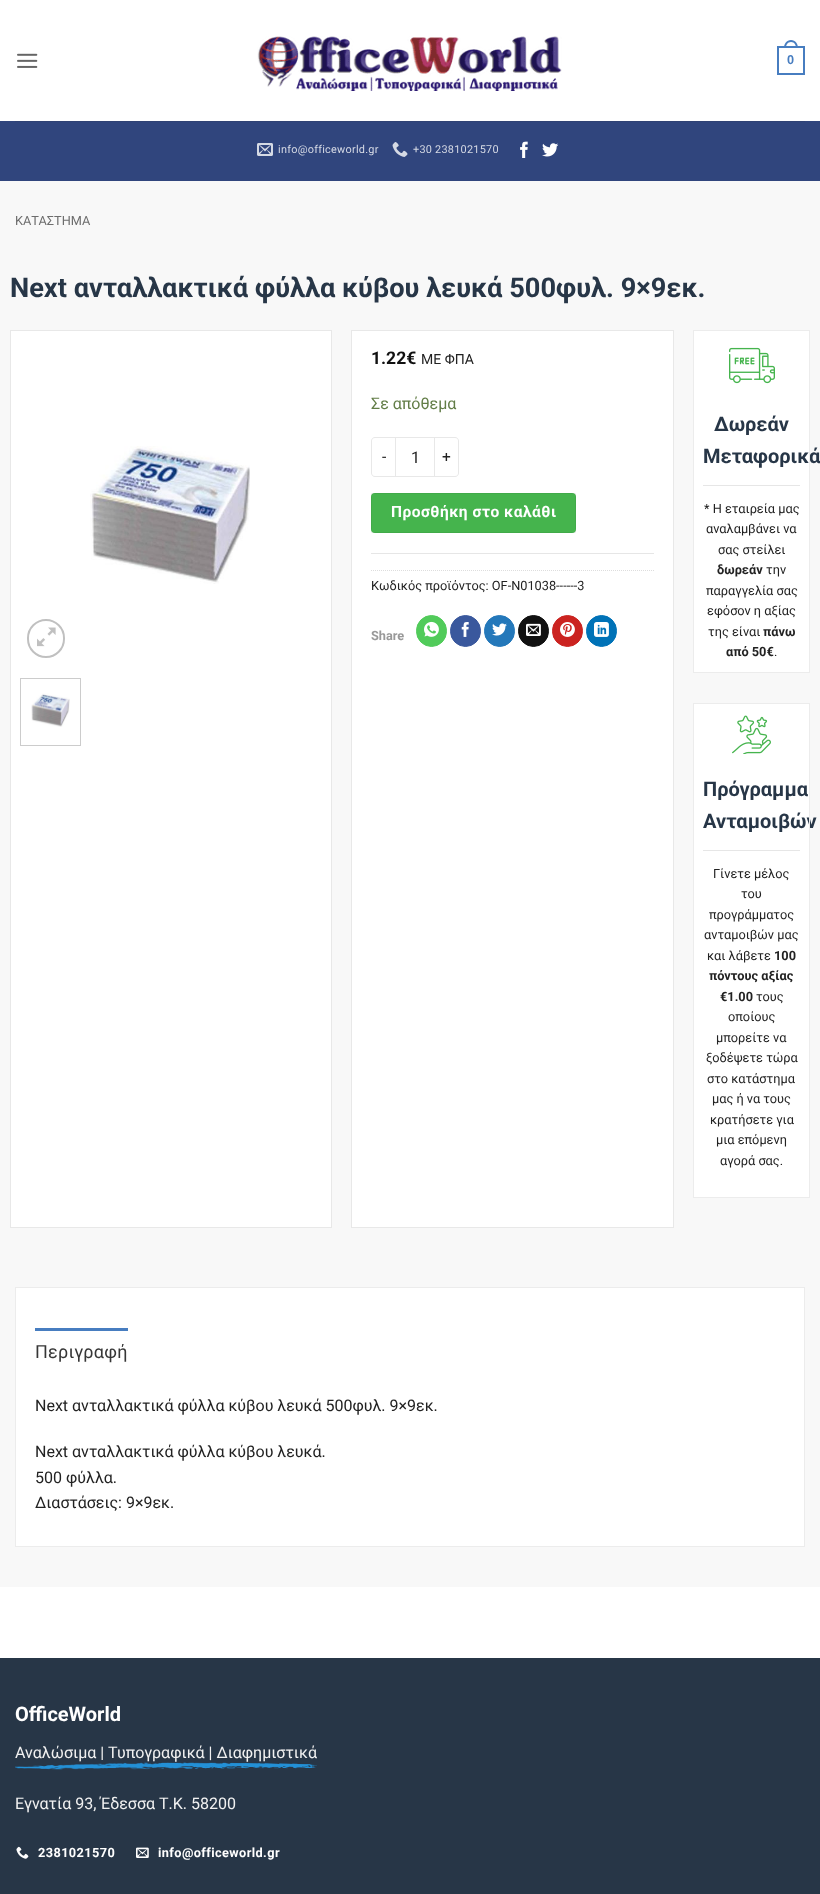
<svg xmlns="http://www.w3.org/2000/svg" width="820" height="1894">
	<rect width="100%" height="100%" fill="#FFFFFF" />
	<image x="17" y="53" width="21" height="15" href="assets/img1.png" />
	<image x="257" y="36" width="305" height="55" href="assets/img2.png" />
	<rect x="778" y="47" width="26" height="27" fill="none" stroke="#477DC0" stroke-width="2" />
	<path d="M791 40C795.5 40 798 44 798 48H784C784 44 786.5 40 791 40ZM791 42C794.5 42 796 45 796 48H786C786 45 787.5 42 791 42Z" fill="#477DC0" fill-rule="evenodd" />
	<text x="787" y="64" font-family="Liberation Sans" font-size="12.75" font-weight="700" fill="#477DC0">0</text>
	<rect x="0" y="121" width="820" height="60" fill="#30457D" />
	<rect x="15" y="121" width="790" height="1" fill="#2F4274" />
	<image x="257" y="143" width="16" height="13" href="assets/img3.png" />
	<text x="278" y="153" font-family="Roboto" font-size="10.9" letter-spacing="0.25" fill="#D6DAE5">info@officeworld.gr</text>
	<image x="392" y="142" width="16" height="15" href="assets/img4.png" />
	<text x="413" y="153" font-family="Roboto" font-size="10.9" letter-spacing="0.25" fill="#D6DAE5">+30 2381021570</text>
	<image x="520" y="141" width="8" height="17" href="assets/img5.png" />
	<image x="542" y="143" width="17" height="14" href="assets/img6.png" />
	<rect x="0" y="181" width="820" height="1406" fill="#F8F8F8" />
	<text x="15" y="225" font-family="Roboto" font-size="12.75" fill="#6D6D6D">ΚΑΤΑΣΤΗΜΑ</text>
	<text x="10" y="297" font-family="Roboto" font-size="27.2" font-weight="700" fill="#273647">Next ανταλλακτικά φύλλα κύβου λευκά 500φυλ. 9×9εκ.</text>
	<rect x="10.5" y="330.5" width="321" height="897" fill="#FFFFFF" stroke="#E8E8E8" />
	<image x="90" y="446" width="160" height="138" href="assets/img7.png" />
	<rect x="28" y="620" width="36" height="37" rx="18" fill="none" stroke="#C0C0C0" stroke-width="2" />
	<image x="37" y="627" width="19" height="20" href="assets/img8.png" />
	<rect x="20.5" y="678.5" width="60" height="67" fill="none" stroke="#CCCCCC" />
	<image x="31" y="693" width="39" height="34" href="assets/img9.png" />
	<rect x="352" y="331" width="321" height="896" fill="#FFFFFF" />
	<rect x="395.5" y="437.5" width="39" height="39" fill="none" stroke="#E8E8E8" />
	<rect x="371" y="553" width="283" height="1" fill="#E6E6E6" />
	<path d="M371 570.5H654" fill="none" stroke="#DDDDDD" stroke-dasharray="1 1" />
	<rect x="351.5" y="330.5" width="322" height="897" fill="none" stroke="#E8E8E8" />
	<text x="371" y="364" font-family="Roboto" font-size="17.5" font-weight="700" fill="#111111">1.22€</text>
	<text x="421" y="364" font-family="Roboto" font-size="14" fill="#222222">ΜΕ ΦΠΑ</text>
	<text x="371" y="409" font-family="Roboto" font-size="16" fill="#627D47">Σε απόθεμα</text>
	<path d="M375 437H395V477H375C373 477 371 475 371 473V441C371 439 373 437 375 437ZM375 438H395V476H375C373 476 372 475 372 473V441C372 439 373 438 375 438Z" fill="#E8E8E8" fill-rule="evenodd" />
	<text x="382" y="462" font-family="Roboto" font-size="15.5" letter-spacing="0.5" fill="#222222">-</text>
	<text x="411" y="463" font-family="Roboto" font-size="16" fill="#222222">1</text>
	<path d="M435 437H455C457 437 459 439 459 441V473C459 475 457 477 455 477H435ZM435 438H455C457 438 458 439 458 441V473C458 475 457 476 455 476H435Z" fill="#E8E8E8" fill-rule="evenodd" />
	<text x="442" y="462" font-family="Roboto" font-size="15.5" letter-spacing="0.5" fill="#222222">+</text>
	<rect x="371" y="493" width="205" height="40" rx="4" fill="#45B44D" />
	<rect x="371.5" y="493.5" width="204" height="39" fill="none" stroke="#000000" stroke-opacity="0.05" />
	<text x="391" y="517" font-family="Roboto" font-size="15.5" font-weight="700" letter-spacing="0.5" fill="#FFFFFF">Προσθήκη στο καλάθι</text>
	<text x="371" y="590" font-family="Roboto" font-size="12.75" fill="#222222">Κωδικός προϊόντος: OF-N01038------3</text>
	<text x="371" y="640" font-family="Roboto" font-size="12.75" font-weight="700" fill="#999999">Share</text>
	<rect x="416.5" y="615.5" width="30" height="31" rx="15" fill="#51CB5A" stroke="#51CB5A" />
	<image x="424" y="621" width="15" height="16" href="assets/img10.png" />
	<rect x="450.5" y="615.5" width="30" height="31" rx="15" fill="#3A589D" stroke="#3A589D" />
	<image x="461" y="622" width="8" height="15" href="assets/img11.png" />
	<rect x="484.5" y="615.5" width="30" height="31" rx="15" fill="#2478BA" stroke="#2478BA" />
	<image x="492" y="623" width="15" height="13" href="assets/img12.png" />
	<rect x="518.5" y="615.5" width="30" height="31" rx="15" fill="#111111" stroke="#111111" />
	<image x="526" y="623" width="15" height="13" href="assets/img13.png" />
	<rect x="552.5" y="615.5" width="30" height="31" rx="15" fill="#CB2320" stroke="#CB2320" />
	<image x="560" y="622" width="15" height="15" href="assets/img14.png" />
	<rect x="586.5" y="615.5" width="30" height="31" rx="15" fill="#0072B7" stroke="#0072B7" />
	<image x="594" y="622" width="15" height="15" href="assets/img15.png" />
	<rect x="694" y="331" width="115" height="341" fill="#FFFFFF" />
	<text x="703" y="463" font-family="Roboto" font-size="20" font-weight="700" fill="#273647">Μεταφορικά</text>
	<rect x="703" y="485" width="97" height="1" fill="#E6E6E6" />
	<rect x="693.5" y="330.5" width="116" height="342" fill="none" stroke="#ECECEC" />
	<image x="729" y="347" width="46" height="37" href="assets/img16.png" />
	<text x="714" y="431" font-family="Roboto" font-size="20" font-weight="700" fill="#273647">Δωρεάν</text>
	<g font-family="Roboto" font-size="12.75" fill="#222222">
		<text x="704" y="513">* Η εταιρεία μας</text>
		<text x="706" y="533">αναλαμβάνει να</text>
		<text x="718" y="554">σας στείλει</text>
	</g>
	<text x="717" y="574" font-family="Roboto" font-size="12.75" font-weight="700" fill="#222222">δωρεάν</text>
	<g font-family="Roboto" font-size="12.75" fill="#222222">
		<text x="766" y="574">την</text>
		<text x="706" y="595">παραγγελία σας</text>
		<text x="707" y="615">εφόσον η αξίας</text>
		<text x="708" y="636">της είναι</text>
	</g>
	<g font-family="Roboto" font-size="12.75" font-weight="700" fill="#222222">
		<text x="763" y="636">πάνω</text>
		<text x="726" y="656">από 50€</text>
	</g>
	<text x="774" y="656" font-family="Roboto" font-size="12.75" fill="#222222">.</text>
	<rect x="694" y="704" width="115" height="493" fill="#FFFFFF" />
	<text x="703" y="828" font-family="Roboto" font-size="20" font-weight="700" fill="#273647">Ανταμοιβών</text>
	<rect x="703" y="850" width="97" height="1" fill="#E6E6E6" />
	<rect x="693.5" y="703.5" width="116" height="494" fill="none" stroke="#ECECEC" />
	<image x="732" y="715" width="39" height="39" href="assets/img17.png" />
	<text x="703" y="796" font-family="Roboto" font-size="20" font-weight="700" fill="#273647">Πρόγραμμα</text>
	<g font-family="Roboto" font-size="12.75" fill="#222222">
		<text x="713" y="878">Γίνετε μέλος</text>
		<text x="741" y="898">του</text>
		<text x="709" y="919">προγράμματος</text>
		<text x="704" y="939">ανταμοιβών μας</text>
		<text x="707" y="960">και λάβετε</text>
	</g>
	<g font-family="Roboto" font-size="12.75" font-weight="700" fill="#222222">
		<text x="774" y="960">100</text>
		<text x="709" y="980">πόντους αξίας</text>
		<text x="720" y="1001">€1.00</text>
	</g>
	<g font-family="Roboto" font-size="12.75" fill="#222222">
		<text x="756" y="1001">τους</text>
		<text x="728" y="1021">οποίους</text>
		<text x="716" y="1042">μπορείτε να</text>
		<text x="706" y="1062">ξοδέψετε τώρα</text>
		<text x="707" y="1083">στο κατάστημα</text>
		<text x="712" y="1103">μας ή να τους</text>
		<text x="710" y="1124">κρατήσετε για</text>
		<text x="716" y="1144">μια επόμενη</text>
		<text x="720" y="1165">αγορά σας.</text>
	</g>
	<rect x="16" y="1288" width="788" height="258" fill="#FFFFFF" />
	<rect x="15.5" y="1287.5" width="789" height="259" fill="none" stroke="#ECECEC" />
	<rect x="35" y="1328" width="93" height="3" fill="#477DC0" />
	<text x="35" y="1358" font-family="Roboto" font-size="18" letter-spacing="0.25" fill="#363636">Περιγραφή</text>
	<g font-family="Roboto" font-size="16" fill="#222222">
		<text x="35" y="1411">Next ανταλλακτικά φύλλα κύβου λευκά 500φυλ. 9×9εκ.</text>
		<text x="35" y="1457">Next ανταλλακτικά φύλλα κύβου λευκά.</text>
		<text x="35" y="1483">500 φύλλα.</text>
		<text x="35" y="1508">Διαστάσεις: 9×9εκ.</text>
	</g>
	<rect x="0" y="1658" width="820" height="236" fill="#273647" />
	<text x="15" y="1721" font-family="Roboto" font-size="20" font-weight="700" fill="#FFFFFF">OfficeWorld</text>
	<text x="15" y="1758" font-family="Roboto" font-size="16" fill="#F1F1F1">Αναλώσιμα | Τυπογραφικά | Διαφημιστικά</text>
	<image x="15" y="1762" width="302" height="8" href="assets/img18.png" />
	<text x="15" y="1809" font-family="Roboto" font-size="16" fill="#F1F1F1">Εγνατία 93, Έδεσσα Τ.Κ. 58200</text>
	<image x="16" y="1846" width="13" height="13" href="assets/img19.png" />
	<text x="38" y="1857" font-family="Roboto" font-size="12.75" font-weight="700" letter-spacing="0.4" fill="#FFFFFF">2381021570</text>
	<image x="136" y="1847" width="13" height="11" href="assets/img20.png" />
	<text x="158" y="1857" font-family="Roboto" font-size="12.75" font-weight="700" letter-spacing="0.4" fill="#FFFFFF">info@officeworld.gr</text>
</svg>
